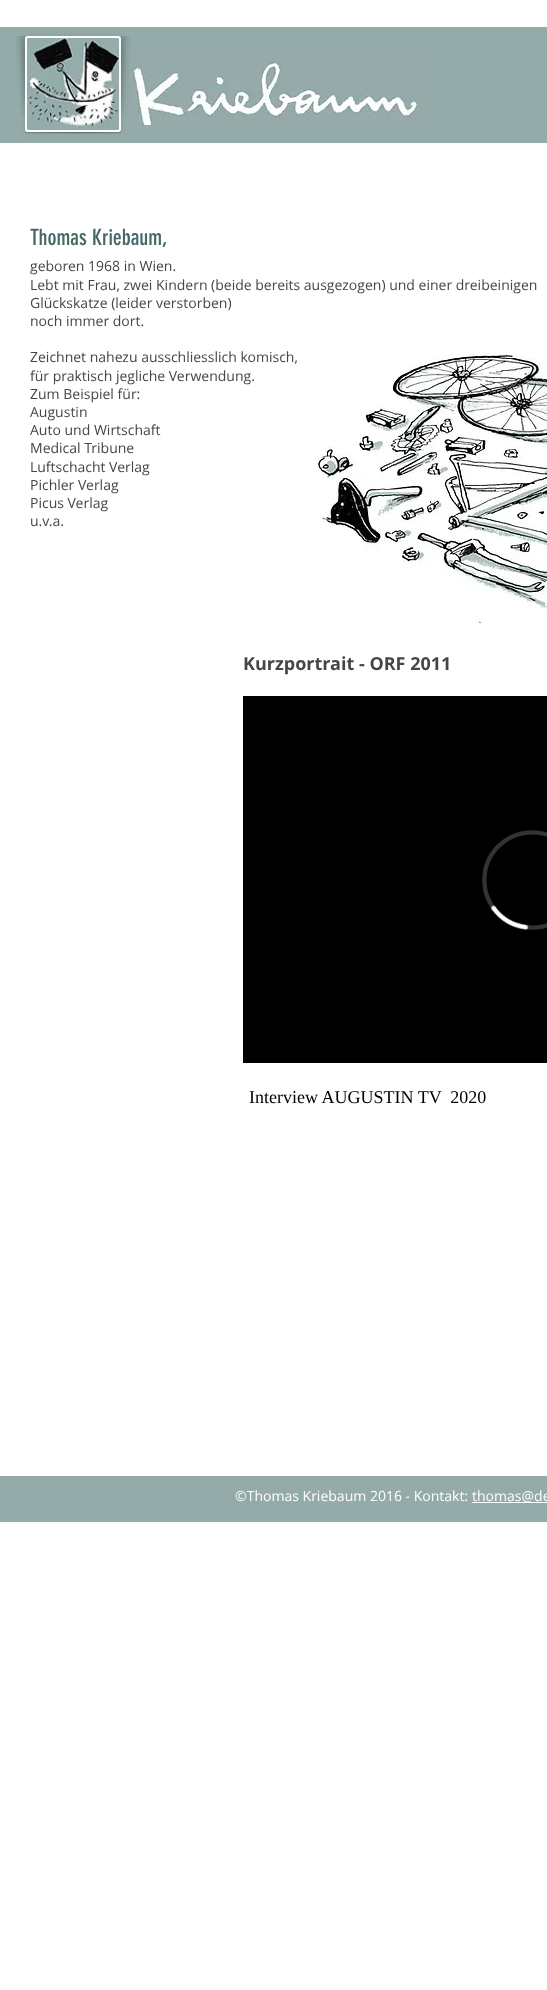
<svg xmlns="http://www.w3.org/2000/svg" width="547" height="1990">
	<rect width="100%" height="100%" fill="#FFFFFF" />
	<rect x="0" y="27" width="547" height="116" fill="#94ABAA" />
	<image x="126" y="61" width="291" height="64" href="assets/img5.png" />
	<rect x="25" y="36" width="96" height="96" rx="3" fill="#000000" fill-opacity="0.1" filter="blur(2.5px)" />
	<rect x="26" y="37" width="94" height="94" rx="2" fill="#FFFFFF" stroke="#FFFFFF" stroke-width="2" />
	<image x="27" y="38" width="92" height="92" href="assets/img1.png" />
	<image x="25" y="132" width="96" height="2" href="assets/img2.png" />
	<image x="16" y="36" width="9" height="81" href="assets/img3.png" />
	<image x="121" y="36" width="9" height="81" href="assets/img4.png" />
	<text x="30" y="245" font-family="'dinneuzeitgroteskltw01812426'" font-size="22" fill="#456967">Thomas Kriebaum,</text>
	<g font-family="Open Sans" font-size="14" fill="#464646">
		<text x="30" y="271">geboren 1968 in Wien.</text>
		<text x="30" y="290">Lebt mit Frau, zwei Kindern (beide bereits ausgezogen) und einer dreibeinigen</text>
		<text x="30" y="308">Glückskatze (leider verstorben)</text>
		<text x="30" y="326">noch immer dort.</text>
		<text x="30" y="362">Zeichnet nahezu ausschliesslich komisch,</text>
		<text x="30" y="381">für praktisch jegliche Verwendung.</text>
		<text x="30" y="399">Zum Beispiel für:</text>
		<text x="30" y="417">Augustin</text>
		<text x="30" y="435">Auto und Wirtschaft</text>
		<text x="30" y="453">Medical Tribune</text>
		<text x="30" y="472">Luftschacht Verlag</text>
		<text x="30" y="490">Pichler Verlag</text>
		<text x="30" y="508">Picus Verlag</text>
		<text x="30" y="526">u.v.a.</text>
	</g>
	<image x="316" y="352" width="231" height="274" href="assets/img6.png" />
	<text x="243" y="670" font-family="Open Sans" font-size="18" font-weight="700" fill="#464646">Kurzportrait - ORF 2011</text>
	<image x="243" y="696" width="304" height="367" href="assets/img7.png" />
	<text x="249" y="1103" font-family="Liberation Serif" font-size="18" fill="#000000" xml:space="preserve">Interview AUGUSTIN TV  2020</text>
	<rect x="0" y="1476" width="547" height="46" fill="#94ABAA" />
	<text x="235" y="1501" font-family="Open Sans" font-size="14" fill="#FFFFFF">©Thomas Kriebaum 2016 - Kontakt:</text>
	<rect x="472" y="1502" width="75" height="1" fill="#FFFFFF" />
	<text x="472" y="1501" font-family="Open Sans" font-size="14" fill="#FFFFFF">thomas@de</text>
</svg>
